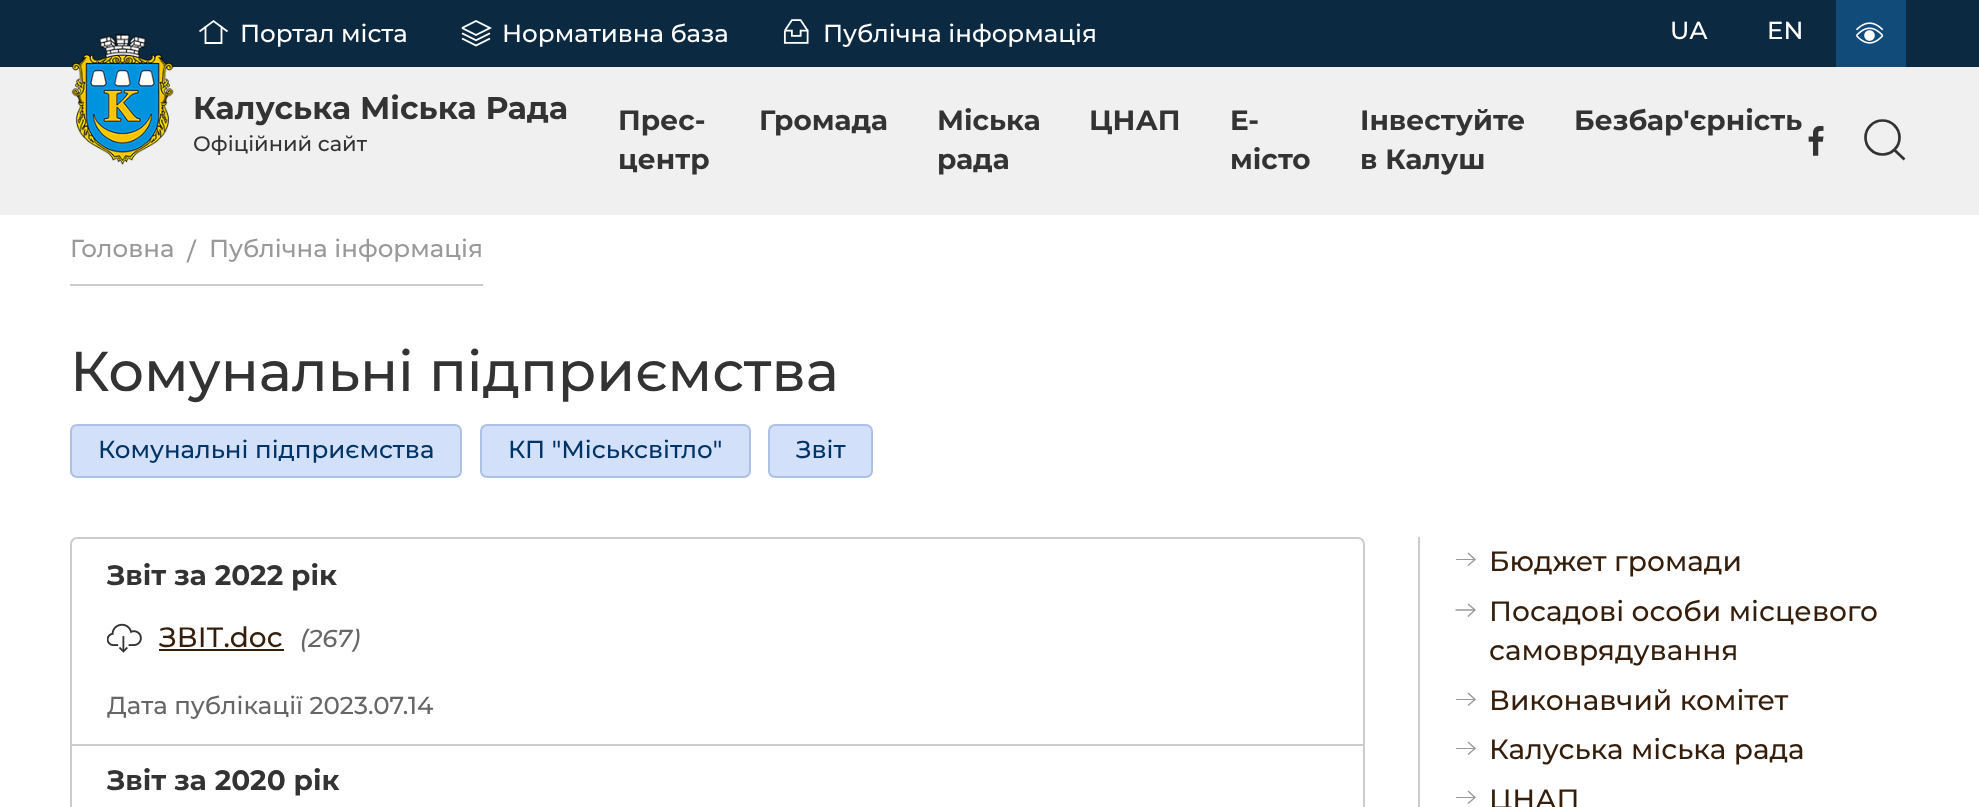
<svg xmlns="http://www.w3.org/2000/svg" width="1979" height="807">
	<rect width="100%" height="100%" fill="#FFFFFF" />
	<rect x="0" y="67" width="1979" height="148" fill="#F0F0F0" />
	<rect x="0" y="0" width="1979" height="67" fill="#0B2941" />
	<path d="M199.5 31.5L213.5 21L227.5 31.5M205.5 26V43H221.5V26" fill="none" stroke="#FFFFFF" stroke-width="1.8" />
	<text x="240" y="42" font-family="Montserrat" font-size="24.5" font-weight="500" fill="#FFFFFF">Портал міста</text>
	<image x="461" y="20" width="31" height="27" href="assets/img1.png" />
	<text x="502" y="42" font-family="Montserrat" font-size="24.5" font-weight="500" fill="#FFFFFF">Нормативна база</text>
	<image x="783" y="19" width="26" height="25" href="assets/img2.png" />
	<g font-family="Montserrat" font-size="24.5" font-weight="500" fill="#FFFFFF">
		<text x="823" y="42">Публічна інформація</text>
		<text x="1670" y="39">UA</text>
		<text x="1767" y="39">EN</text>
	</g>
	<rect x="1836" y="0" width="70" height="67" fill="#104B7A" />
	<image x="1856" y="22" width="28" height="22" href="assets/img3.png" />
	<image x="71" y="34" width="103" height="131" href="assets/img4.png" />
	<text x="193" y="119" font-family="Montserrat" font-size="31.5" font-weight="700" fill="#333333">Калуська Міська Рада</text>
	<text x="193" y="151" font-family="Montserrat" font-size="21" font-weight="500" fill="#333333">Офіційний сайт</text>
	<g font-family="Montserrat" font-size="28" font-weight="700" fill="#333333">
		<text x="618" y="130">Прес-</text>
		<text x="618" y="169">центр</text>
		<text x="759" y="130">Громада</text>
		<text x="937" y="130">Міська</text>
		<text x="937" y="169">рада</text>
		<text x="1089" y="130">ЦНАП</text>
		<text x="1230" y="130">E-</text>
		<text x="1230" y="169">місто</text>
		<text x="1360" y="130">Інвестуйте</text>
		<text x="1360" y="169">в Калуш</text>
		<text x="1574" y="130">Безбар'єрність</text>
	</g>
	<image x="1808" y="126" width="16" height="30" href="assets/img5.png" />
	<circle cx="1882.5" cy="137.5" r="17" fill="none" stroke="#333333" stroke-width="2.7" />
	<path d="M1894.5 150L1904.5 159.5Z" fill="none" stroke="#333333" stroke-width="2.7" />
	<rect x="70" y="284" width="413" height="2" fill="#CCCCCC" />
	<g font-family="Montserrat" font-size="24.5" font-weight="500" fill="#999999">
		<text x="70" y="257">Головна</text>
		<text x="187" y="260">/</text>
		<text x="209" y="257">Публічна інформація</text>
	</g>
	<text x="70" y="391" font-family="Montserrat" font-size="56" font-weight="500" fill="#333333">Комунальні підприємства</text>
	<rect x="71" y="425" width="390" height="52" rx="6" fill="#D2E0F9" stroke="#ADC1E5" stroke-width="2" />
	<text x="98" y="458" font-family="Montserrat" font-size="24.5" font-weight="500" fill="#003366">Комунальні підприємства</text>
	<rect x="481" y="425" width="269" height="52" rx="6" fill="#D2E0F9" stroke="#ADC1E5" stroke-width="2" />
	<text x="508" y="458" font-family="Montserrat" font-size="24.5" font-weight="500" fill="#003366">КП "Міськсвітло"</text>
	<rect x="769" y="425" width="103" height="52" rx="6" fill="#D2E0F9" stroke="#ADC1E5" stroke-width="2" />
	<text x="796" y="458" font-family="Montserrat" font-size="24.5" font-weight="500" fill="#003366">Звіт</text>
	<rect x="71" y="538" width="1293" height="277" rx="6" fill="none" stroke="#CCCCCC" stroke-width="2" />
	<rect x="72" y="744" width="1291" height="2" fill="#CCCCCC" />
	<text x="107" y="585" font-family="Montserrat" font-size="28" font-weight="700" fill="#333333">Звіт за 2022 рік</text>
	<image x="107" y="623" width="35" height="30" href="assets/img6.png" />
	<text x="159" y="647" font-family="Montserrat" font-size="28" font-weight="500" fill="#351E0C">ЗВІТ.doc</text>
	<rect x="159" y="649" width="125" height="2" fill="#351E0C" />
	<text x="300" y="647" font-family="Montserrat" font-size="24.5" font-weight="500" font-style="italic" fill="#666666">(267)</text>
	<text x="107" y="714" font-family="Montserrat" font-size="24.5" font-weight="500" fill="#666666">Дата публікації 2023.07.14</text>
	<text x="107" y="790" font-family="Montserrat" font-size="28" font-weight="700" fill="#333333">Звіт за 2020 рік</text>
	<rect x="1418" y="537" width="2" height="270" fill="#CCCCCC" />
	<path d="M1468 553L1475 559.5L1468 565.5" fill="none" stroke="#999999" stroke-width="1.4" />
	<rect x="1456" y="559" width="19" height="1" fill="#999999" />
	<text x="1489" y="571" font-family="Montserrat" font-size="28" font-weight="500" fill="#351E0C">Бюджет громади</text>
	<path d="M1468 604L1475 610L1468 616.5M1455.5 610H1475" fill="none" stroke="#999999" stroke-width="1.4" />
	<g font-family="Montserrat" font-size="28" font-weight="500" fill="#351E0C">
		<text x="1489" y="621">Посадові особи місцевого</text>
		<text x="1489" y="660">самоврядування</text>
	</g>
	<path d="M1468 693L1475 699.5L1468 705.5" fill="none" stroke="#999999" stroke-width="1.4" />
	<rect x="1456" y="699" width="19" height="1" fill="#999999" />
	<text x="1489" y="710" font-family="Montserrat" font-size="28" font-weight="500" fill="#351E0C">Виконавчий комітет</text>
	<path d="M1468 742L1475 748.5L1468 754.5" fill="none" stroke="#999999" stroke-width="1.4" />
	<rect x="1456" y="748" width="19" height="1" fill="#999999" />
	<text x="1489" y="759" font-family="Montserrat" font-size="28" font-weight="500" fill="#351E0C">Калуська міська рада</text>
	<path d="M1468 791L1475 797.5L1468 803.5" fill="none" stroke="#999999" stroke-width="1.4" />
	<rect x="1456" y="797" width="19" height="1" fill="#999999" />
	<text x="1489" y="809" font-family="Montserrat" font-size="28" font-weight="500" fill="#351E0C">ЦНАП</text>
</svg>
